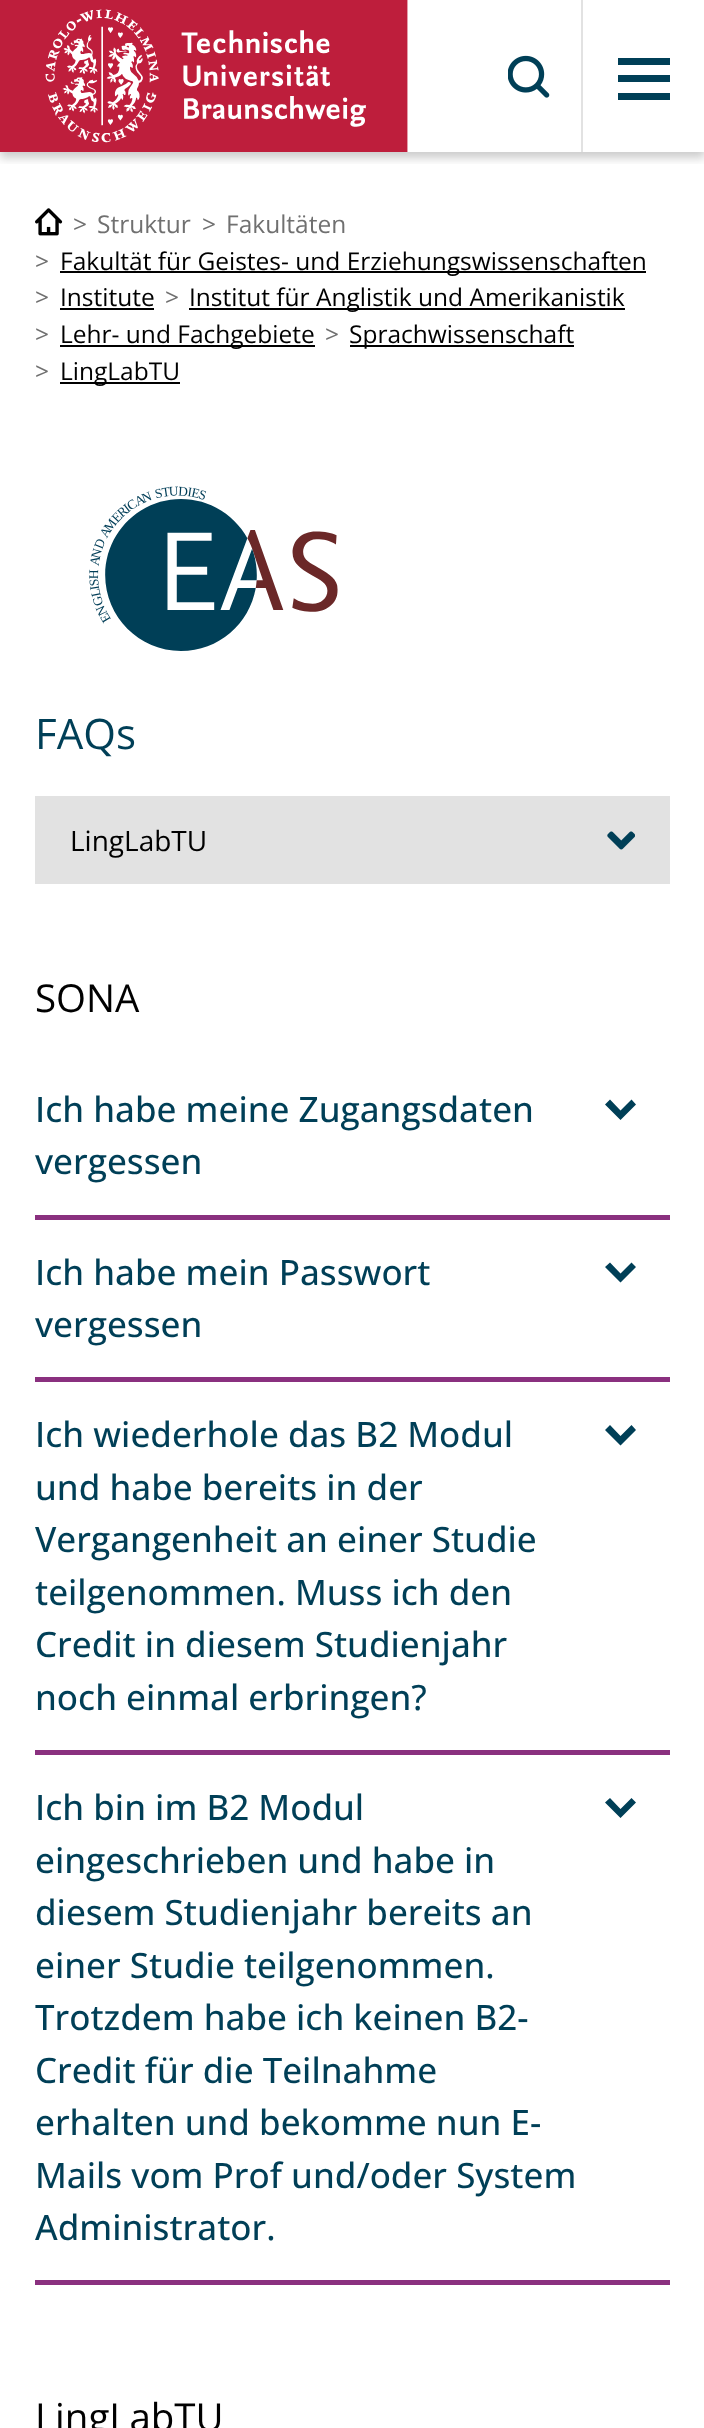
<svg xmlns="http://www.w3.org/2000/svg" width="704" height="2428">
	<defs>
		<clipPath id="clip1"><rect x="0" y="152" width="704" height="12" /></clipPath>
	</defs>
	<rect width="100%" height="100%" fill="#FFFFFF" />
	<g clip-path="url(#clip1)">
		<rect x="0" y="5" width="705" height="153" fill="#000000" fill-opacity="0.2" filter="blur(5px)" />
	</g>
	<image x="0" y="0" width="408" height="152" href="assets/img1.png" />
	<image x="508" y="55" width="42" height="43" href="assets/img2.png" />
	<rect x="581" y="0" width="2" height="152" fill="#E2E2E2" />
	<rect x="618" y="75" width="52" height="7" fill="#003F57" />
	<rect x="618" y="58" width="52" height="7" fill="#003F57" />
	<rect x="618" y="93" width="52" height="7" fill="#003F57" />
	<image x="35" y="208" width="28" height="28" href="assets/img3.png" />
	<g font-family="Open Sans" font-size="24.5" fill="#707070">
		<text x="73" y="233">&gt;</text>
		<text x="97" y="233">Struktur</text>
		<text x="202" y="233">&gt;</text>
		<text x="226" y="233">Fakultäten</text>
		<text x="35" y="270">&gt;</text>
	</g>
	<rect x="60" y="271" width="586" height="2" fill="#000000" />
	<text x="60" y="270" font-family="Open Sans" font-size="24.5" fill="#000000">Fakultät für Geistes- und Erziehungswissenschaften</text>
	<text x="35" y="306" font-family="Open Sans" font-size="24.5" fill="#707070">&gt;</text>
	<text x="60" y="306" font-family="Open Sans" font-size="24.5" fill="#000000">Institute</text>
	<rect x="60" y="308" width="94" height="2" fill="#000000" />
	<text x="165" y="306" font-family="Open Sans" font-size="24.5" fill="#707070">&gt;</text>
	<rect x="189" y="308" width="436" height="2" fill="#000000" />
	<text x="189" y="306" font-family="Open Sans" font-size="24.5" fill="#000000">Institut für Anglistik und Amerikanistik</text>
	<text x="35" y="343" font-family="Open Sans" font-size="24.5" fill="#707070">&gt;</text>
	<rect x="60" y="345" width="255" height="2" fill="#000000" />
	<text x="60" y="343" font-family="Open Sans" font-size="24.5" fill="#000000">Lehr- und Fachgebiete</text>
	<text x="325" y="343" font-family="Open Sans" font-size="24.5" fill="#707070">&gt;</text>
	<rect x="350" y="345" width="224" height="2" fill="#000000" />
	<text x="349" y="343" font-family="Open Sans" font-size="24.5" fill="#000000">Sprachwissenschaft</text>
	<text x="35" y="380" font-family="Open Sans" font-size="24.5" fill="#707070">&gt;</text>
	<rect x="60" y="382" width="120" height="2" fill="#000000" />
	<text x="60" y="380" font-family="Open Sans" font-size="24.5" fill="#000000">LingLabTU</text>
	<image x="89" y="486" width="249" height="165" href="assets/img4.png" />
	<text x="35" y="749" font-family="Open Sans" font-size="42" fill="#003F57">FAQs</text>
	<rect x="35" y="796" width="635" height="88" fill="#E2E2E2" />
	<text x="70" y="851" font-family="Open Sans" font-size="28" fill="#000000">LingLabTU</text>
	<image x="607" y="831" width="28" height="19" href="assets/img5.png" />
	<text x="35" y="1012" font-family="Open Sans" font-size="38.5" fill="#000000">SONA</text>
	<rect x="35" y="1215" width="635" height="5" fill="#8A307F" />
	<text x="35" y="1122" font-family="Open Sans" font-size="35" font-weight="500" fill="#003F57">Ich habe meine Zugangsdaten</text>
	<path d="M620.5 1120L605 1104.5L610 1099.5L620.5 1110.5L631.5 1099.5L636 1104.5Z" fill="#003F57" />
	<text x="35" y="1174" font-family="Open Sans" font-size="35" font-weight="500" fill="#003F57">vergessen</text>
	<rect x="35" y="1377" width="635" height="5" fill="#8A307F" />
	<text x="35" y="1285" font-family="Open Sans" font-size="35" font-weight="500" fill="#003F57">Ich habe mein Passwort</text>
	<path d="M620.5 1282.5L605 1267L610 1262.5L620.5 1273.5L631.5 1262.5L636 1267Z" fill="#003F57" />
	<text x="35" y="1337" font-family="Open Sans" font-size="35" font-weight="500" fill="#003F57">vergessen</text>
	<rect x="35" y="1750" width="635" height="5" fill="#8A307F" />
	<text x="35" y="1447" font-family="Open Sans" font-size="35" font-weight="500" fill="#003F57">Ich wiederhole das B2 Modul</text>
	<path d="M620.5 1445.5L605 1430L610 1425L620.5 1436L631.5 1425L636 1430Z" fill="#003F57" />
	<g font-family="Open Sans" font-size="35" font-weight="500" fill="#003F57">
		<text x="35" y="1500">und habe bereits in der</text>
		<text x="35" y="1552">Vergangenheit an einer Studie</text>
		<text x="35" y="1605">teilgenommen. Muss ich den</text>
		<text x="35" y="1657">Credit in diesem Studienjahr</text>
		<text x="35" y="1710">noch einmal erbringen?</text>
	</g>
	<rect x="35" y="2280" width="635" height="5" fill="#8A307F" />
	<text x="35" y="1820" font-family="Open Sans" font-size="35" font-weight="500" fill="#003F57">Ich bin im B2 Modul</text>
	<path d="M620.5 1818L605 1802.5L610 1798L620.5 1809L631.5 1798L636 1802.5Z" fill="#003F57" />
	<g font-family="Open Sans" font-size="35" font-weight="500" fill="#003F57">
		<text x="35" y="1873">eingeschrieben und habe in</text>
		<text x="35" y="1925">diesem Studienjahr bereits an</text>
		<text x="35" y="1978">einer Studie teilgenommen.</text>
		<text x="35" y="2030">Trotzdem habe ich keinen B2-</text>
		<text x="35" y="2083">Credit für die Teilnahme</text>
		<text x="35" y="2135">erhalten und bekomme nun E-</text>
		<text x="35" y="2188">Mails vom Prof und/oder System</text>
		<text x="35" y="2240">Administrator.</text>
	</g>
	<text x="35" y="2431" font-family="Open Sans" font-size="38.5" fill="#000000">LingLabTU</text>
</svg>
